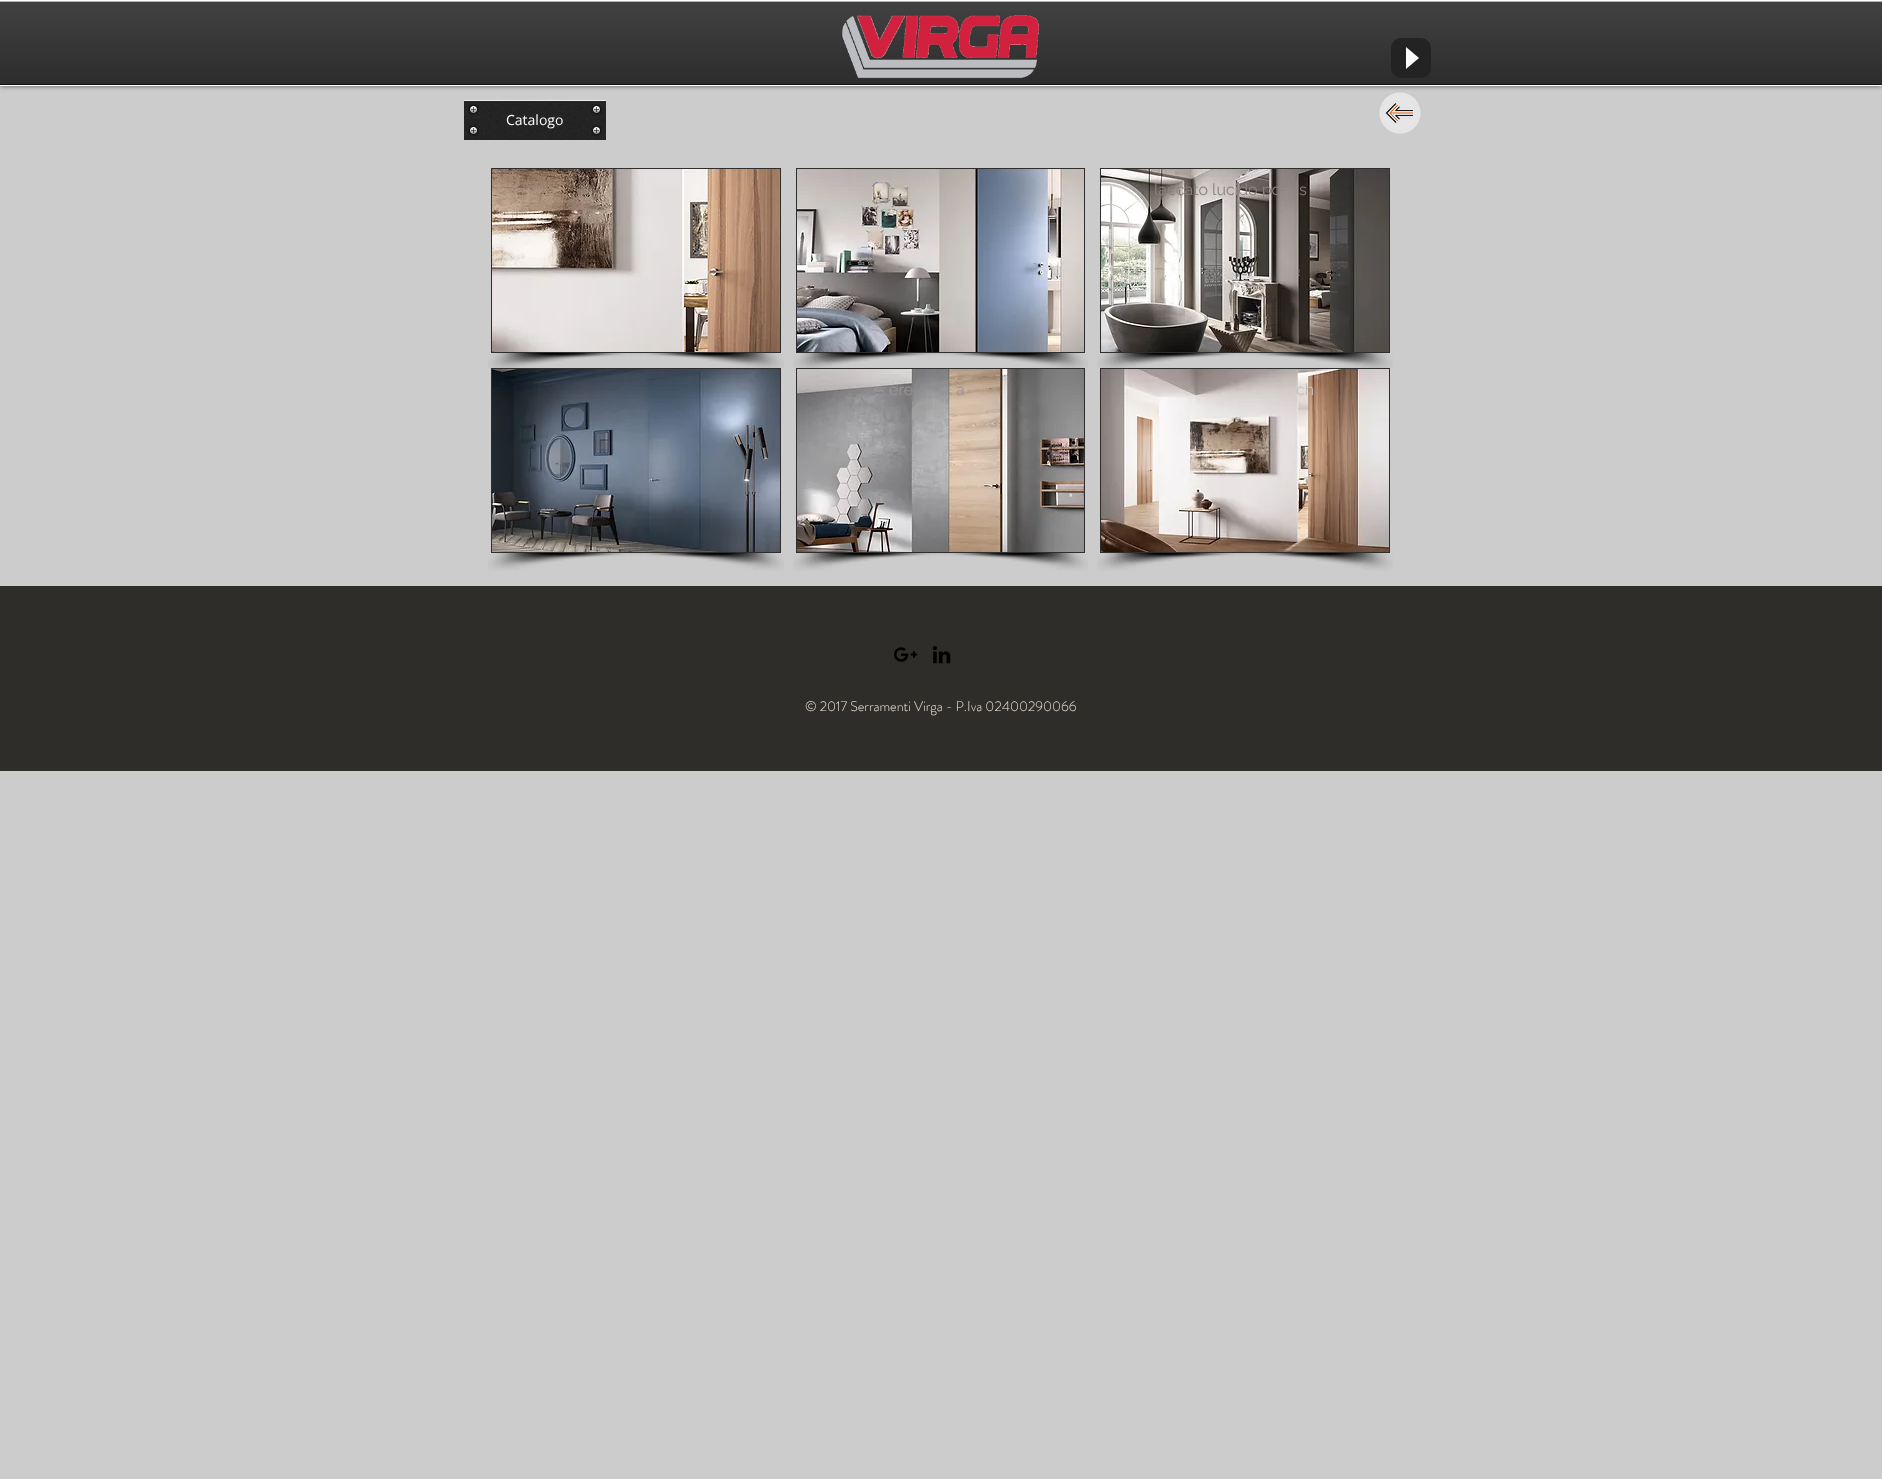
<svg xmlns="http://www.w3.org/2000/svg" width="1882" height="1479">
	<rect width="100%" height="100%" fill="#CCCCCC" />
	<rect x="0" y="0" width="1882" height="86" fill="#000000" fill-opacity="0.6" filter="blur(2.5px)" />
	<rect x="0" y="2" width="1882" height="82" fill="#000000" />
	<image x="0" y="2" width="1882" height="82" href="assets/img1.png" />
	<rect x="0" y="84" width="1882" height="1" fill="#121212" />
	<rect x="0" y="1" width="1882" height="1" fill="#B3B3B3" />
	<rect x="0" y="0" width="1882" height="1" fill="#FFFFFF" />
	<rect x="0" y="85" width="1882" height="1" fill="#FFFFFF" />
	<image x="842" y="15" width="197" height="64" href="assets/img2.png" />
	<rect x="1391" y="38" width="40" height="40" rx="10" fill="#232323" />
	<path d="M1406 69V47L1419 58Z" fill="#FFFFFF" />
	<rect x="464" y="100" width="142" height="40" fill="#232323" />
	<image x="464" y="100" width="142" height="40" href="assets/img3.png" />
	<rect x="464" y="100" width="142" height="1" fill="#FFFFFF" fill-opacity="0.92" />
	<image x="468" y="104" width="11" height="11" href="assets/img4.png" />
	<image x="591" y="104" width="11" height="11" href="assets/img5.png" />
	<text x="506" y="125" font-family="Open Sans" font-size="14" fill="#FFFFFF">Catalogo</text>
	<image x="468" y="125" width="11" height="11" href="assets/img6.png" />
	<image x="591" y="125" width="11" height="11" href="assets/img7.png" />
	<image x="1379" y="92" width="42" height="42" href="assets/img8.png" />
	<rect x="491" y="168" width="290" height="185" fill="#2F2E2E" />
	<image x="492" y="169" width="288" height="183" href="assets/img9.png" />
	<image x="488" y="353" width="154" height="15" href="assets/img10.png" />
	<image x="630" y="353" width="154" height="15" href="assets/img11.png" />
	<rect x="796" y="168" width="289" height="185" fill="#2F2E2E" />
	<image x="797" y="169" width="287" height="183" href="assets/img12.png" />
	<image x="793" y="353" width="154" height="15" href="assets/img10.png" />
	<image x="934" y="353" width="154" height="15" href="assets/img13.png" />
	<rect x="1100" y="168" width="290" height="185" fill="#2F2E2E" />
	<image x="1101" y="169" width="288" height="183" href="assets/img14.png" />
	<g font-family="Raleway" font-size="16" fill="#89827D">
		<text x="1154" y="195">laccato lucido po</text>
		<text x="1299" y="195">s</text>
	</g>
	<image x="1097" y="353" width="154" height="15" href="assets/img10.png" />
	<image x="1239" y="353" width="154" height="15" href="assets/img11.png" />
	<rect x="491" y="368" width="290" height="185" fill="#2F2E2E" />
	<image x="492" y="369" width="288" height="183" href="assets/img15.png" />
	<image x="488" y="553" width="154" height="18" href="assets/img16.png" />
	<image x="630" y="553" width="154" height="18" href="assets/img17.png" />
	<rect x="796" y="368" width="289" height="185" fill="#2F2E2E" />
	<image x="797" y="369" width="287" height="183" href="assets/img18.png" />
	<g font-family="Raleway" font-size="16" fill="#9F958F">
		<text x="889" y="395">ere</text>
		<text x="956" y="395">a</text>
	</g>
	<image x="793" y="553" width="154" height="18" href="assets/img16.png" />
	<image x="934" y="553" width="154" height="18" href="assets/img19.png" />
	<rect x="1100" y="368" width="290" height="185" fill="#2F2E2E" />
	<image x="1101" y="369" width="288" height="183" href="assets/img20.png" />
	<text x="1296" y="395" font-family="Raleway" font-size="16" fill="#C8BFBB">ch</text>
	<image x="1097" y="553" width="154" height="18" href="assets/img16.png" />
	<image x="1239" y="553" width="154" height="18" href="assets/img17.png" />
	<rect x="0" y="586" width="1882" height="185" fill="#2F2D2A" />
	<image x="894" y="647" width="24" height="15" href="assets/img21.png" />
	<image x="932" y="646" width="19" height="18" href="assets/img22.png" />
	<text x="805" y="711" font-family="'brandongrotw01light'" font-size="14" font-weight="300" fill="#EFE4D5">© 2017 Serramenti Virga - P.Iva 02400290066</text>
</svg>
